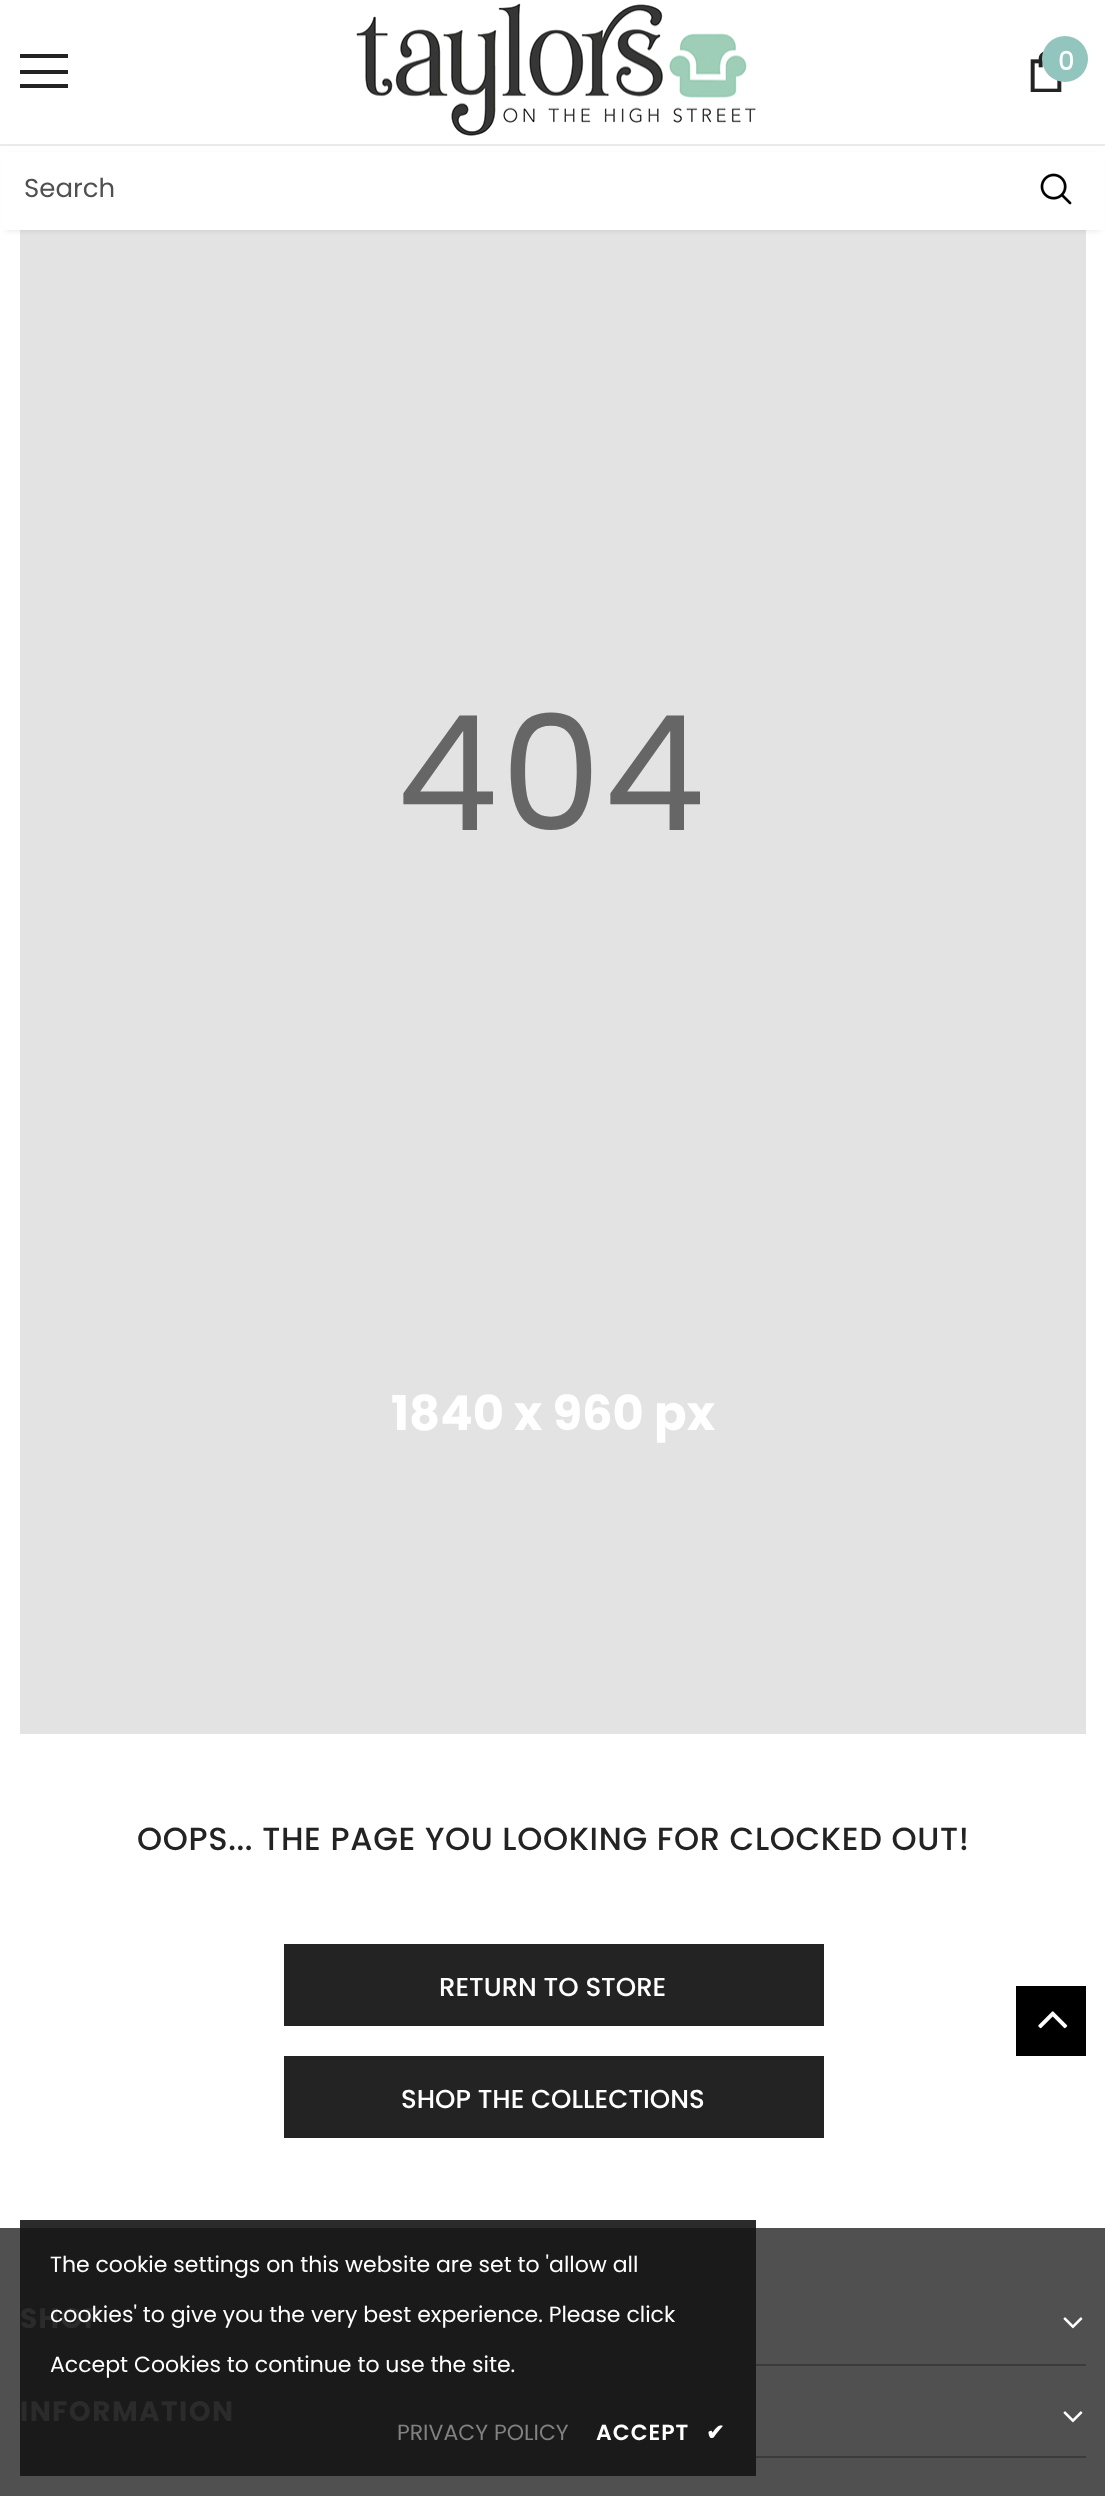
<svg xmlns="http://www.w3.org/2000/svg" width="1105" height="2496">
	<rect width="100%" height="100%" fill="#FFFFFF" />
	<rect x="20" y="2220" width="736" height="8" fill="#2B2B2B" />
	<image x="356" y="3" width="400" height="133" href="assets/img1.png" />
	<image x="1030" y="52" width="32" height="40" href="assets/img2.png" />
	<circle cx="1065" cy="59" r="23" fill="#92C5BD" />
	<text x="1058" y="70" font-family="Poppins" font-size="26" font-weight="500" fill="#FFFFFF">0</text>
	<rect x="20" y="230" width="1066" height="1504" fill="#E3E3E3" />
	<rect x="6" y="156" width="1094" height="74" fill="#000000" fill-opacity="0.12" filter="blur(3px)" />
	<rect x="2" y="152" width="1102" height="78" fill="#FFFFFF" />
	<rect x="0" y="144" width="1105" height="2" fill="#EAEAEA" />
	<text x="24" y="197" font-family="Poppins" font-size="26" fill="#505050">Search</text>
	<image x="1040" y="173" width="32" height="32" href="assets/img3.png" />
	<rect x="20" y="54" width="48" height="4" fill="#232323" />
	<rect x="20" y="70" width="48" height="4" fill="#232323" />
	<rect x="20" y="84" width="48" height="4" fill="#232323" />
	<text x="397" y="830" font-family="Poppins" font-size="160" letter-spacing="3" fill="#666666">404</text>
	<text x="391" y="1430" font-family="Poppins" font-size="48" font-weight="700" fill="#FFFFFF">1840 x 960 px</text>
	<text x="137" y="1850" font-family="Poppins" font-size="32" font-weight="500" letter-spacing="0.65" fill="#232323">OOPS... THE PAGE YOU LOOKING FOR CLOCKED OUT!</text>
	<rect x="284" y="1944" width="540" height="82" fill="#232323" />
	<text x="439" y="1996" font-family="Poppins" font-size="26" font-weight="500" fill="#FFFFFF">RETURN TO STORE</text>
	<rect x="284" y="2056" width="540" height="82" fill="#232323" />
	<text x="401" y="2108" font-family="Poppins" font-size="26" font-weight="500" fill="#FFFFFF">SHOP THE COLLECTIONS</text>
	<rect x="1016" y="1986" width="70" height="70" fill="#000000" />
	<image x="1038" y="2011" width="30" height="18" href="assets/img4.png" />
	<rect x="0" y="2228" width="1105" height="268" fill="#505050" />
	<rect x="20" y="2228" width="736" height="248" fill="#1A1A1A" />
	<text x="50" y="2272" font-family="Poppins" font-size="22" fill="#FFFFFF">The cookie settings on this website are set to 'allow all</text>
	<text x="20" y="2328" font-family="Poppins" font-size="28" font-weight="700" letter-spacing="1.4" fill="#2B2B2B">SHOP</text>
	<g font-family="Poppins" font-size="22" fill="#FFFFFF">
		<text x="50" y="2322">cookies' to give you the very best experience. Please click</text>
		<text x="50" y="2372">Accept Cookies to continue to use the site.</text>
	</g>
	<text x="397" y="2440" font-family="Poppins" font-size="22" fill="#818181">PRIVACY POLICY</text>
	<text x="596" y="2440" font-family="Poppins" font-size="22" font-weight="600" letter-spacing="1" fill="#FFFFFF">ACCEPT</text>
	<text x="706" y="2440" font-family="DejaVu Sans" font-size="22" font-weight="700" letter-spacing="1" fill="#FFFFFF">✔</text>
	<rect x="756" y="2364" width="330" height="2" fill="#3B3B3B" />
	<image x="1063" y="2317" width="20" height="12" href="assets/img5.png" />
	<rect x="756" y="2456" width="330" height="2" fill="#3B3B3B" />
	<text x="20" y="2421" font-family="Poppins" font-size="28" font-weight="700" letter-spacing="1.4" fill="#2B2B2B">INFORMATION</text>
	<image x="1063" y="2411" width="20" height="12" href="assets/img5.png" />
</svg>
